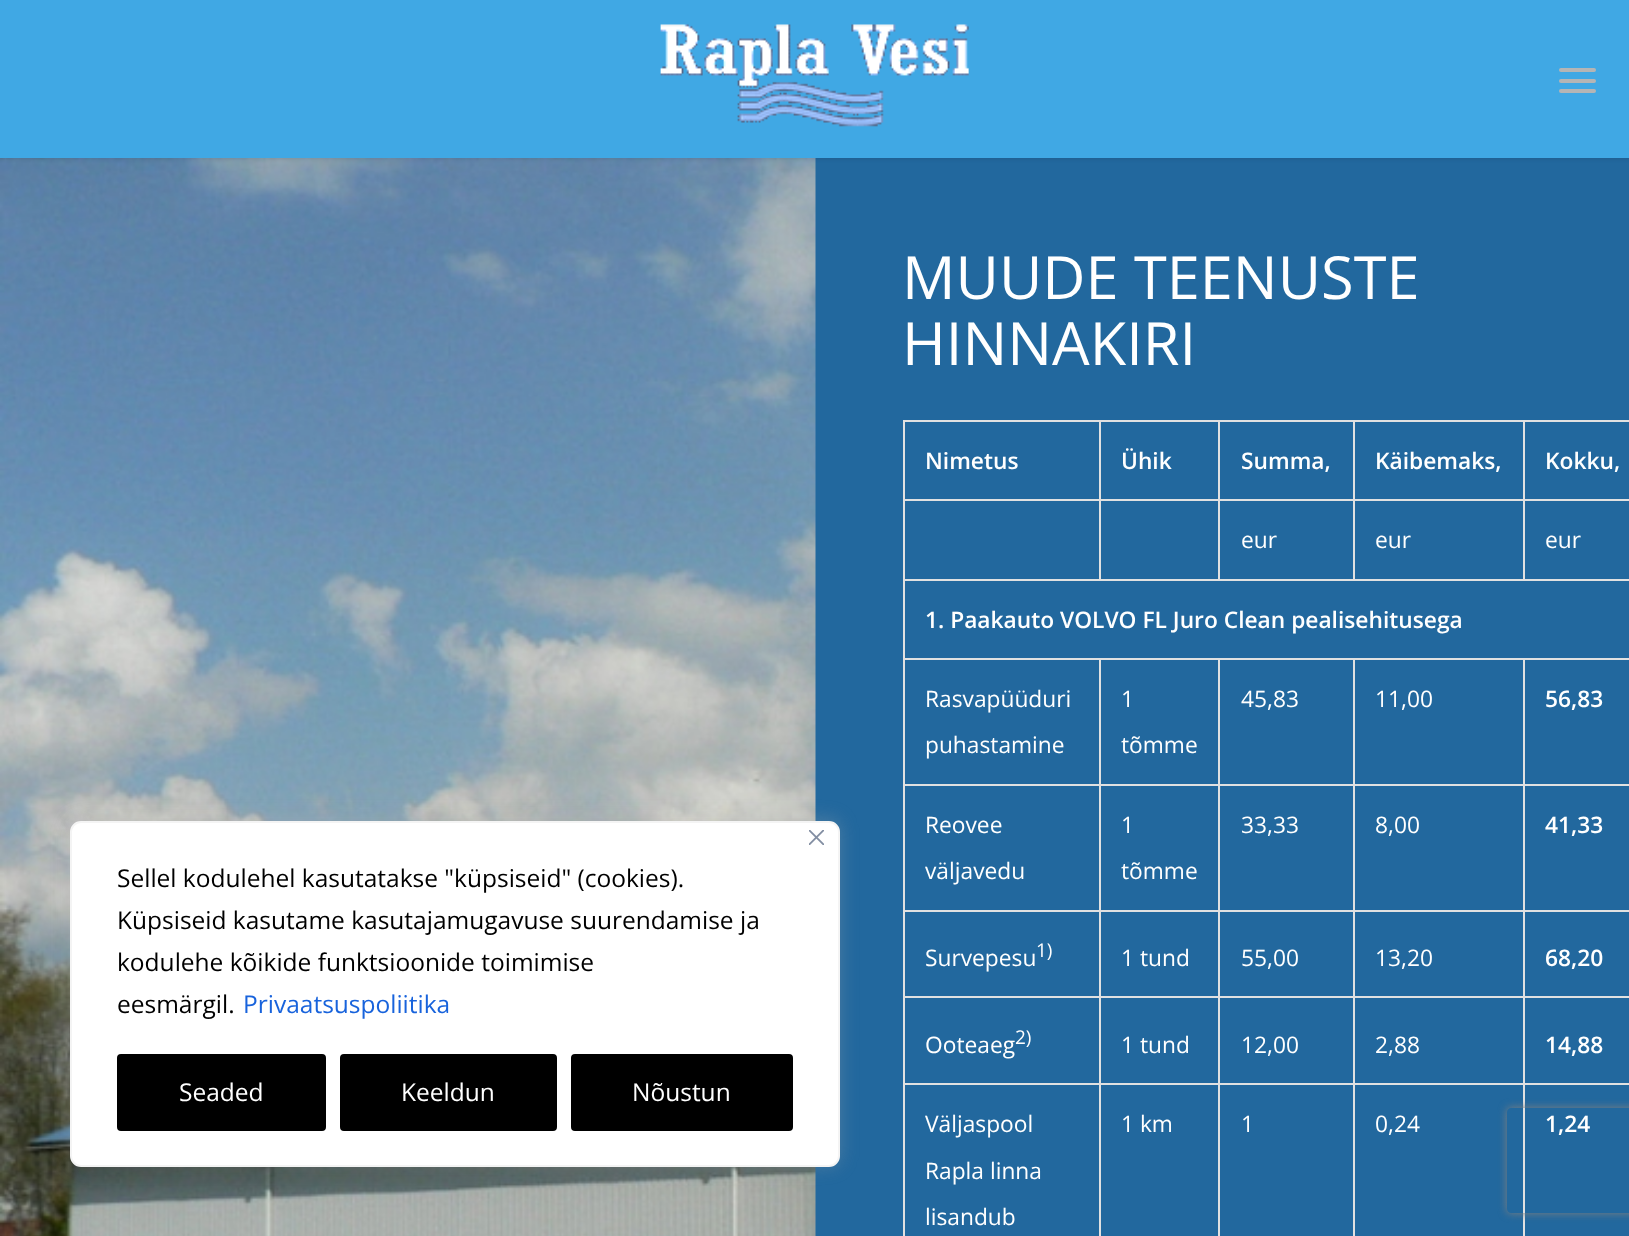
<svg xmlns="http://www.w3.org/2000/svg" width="1629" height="1236">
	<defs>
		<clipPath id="clip1"><path d="M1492 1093H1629V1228H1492ZM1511 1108H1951C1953 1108 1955 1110 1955 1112V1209C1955 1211 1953 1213 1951 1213H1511C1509 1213 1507 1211 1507 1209V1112C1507 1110 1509 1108 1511 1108Z" clip-rule="evenodd" /></clipPath>
	</defs>
	<rect width="100%" height="100%" fill="#22689E" />
	<image x="0" y="158" width="816" height="1078" href="assets/img3.png" />
	<rect x="70" y="819" width="770" height="347" rx="11" fill="#ACABAB" fill-opacity="0.3" filter="blur(9px)" />
	<rect x="71" y="822" width="768" height="344" rx="10" fill="#FFFFFF" stroke="#F4F4F4" stroke-width="2" />
	<image x="809" y="830" width="15" height="15" href="assets/img1.png" />
	<g font-family="Open Sans" font-size="24.5" fill="#000000">
		<text x="117" y="887">Sellel kodulehel kasutatakse "küpsiseid" (cookies).</text>
		<text x="117" y="929">Küpsiseid kasutame kasutajamugavuse suurendamise ja</text>
		<text x="117" y="971">kodulehe kõikide funktsioonide toimimise</text>
		<text x="117" y="1013">eesmärgil.</text>
	</g>
	<text x="243" y="1013" font-family="Open Sans" font-size="24.5" fill="#1863DC">Privaatsuspoliitika</text>
	<rect x="119" y="1056" width="205" height="73" rx="2" fill="#000000" stroke="#000000" stroke-width="4" />
	<text x="179" y="1101" font-family="Open Sans" font-size="24.5" fill="#FFFFFF">Seaded</text>
	<rect x="342" y="1056" width="213" height="73" rx="2" fill="#000000" stroke="#000000" stroke-width="4" />
	<text x="401" y="1101" font-family="Open Sans" font-size="24.5" fill="#FFFFFF">Keeldun</text>
	<rect x="573" y="1056" width="218" height="73" rx="2" fill="#000000" stroke="#000000" stroke-width="4" />
	<text x="632" y="1101" font-family="Open Sans" font-size="24.5" fill="#FFFFFF">Nõustun</text>
	<rect x="-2" y="-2" width="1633" height="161" fill="#000000" fill-opacity="0.1" filter="blur(2px)" />
	<rect x="0" y="0" width="1629" height="158" fill="#40A8E4" />
	<image x="660" y="24" width="309" height="103" href="assets/img2.png" />
	<rect x="1559" y="79" width="37" height="4" rx="2" fill="#B5B5B5" />
	<rect x="1559" y="68" width="37" height="4" rx="2" fill="#B5B5B5" />
	<rect x="1559" y="89" width="37" height="4" rx="2" fill="#B5B5B5" />
	<g font-family="Open Sans" font-size="59.5" fill="#FFFFFF">
		<text x="902" y="299">MUUDE TEENUSTE</text>
		<text x="902" y="365">HINNAKIRI</text>
	</g>
	<rect x="903" y="420" width="726" height="2" fill="#E1E1E1" />
	<rect x="1523" y="579" width="106" height="2" fill="#E1E1E1" />
	<rect x="1523" y="499" width="2" height="82" fill="#E1E1E1" />
	<rect x="1523" y="499" width="106" height="2" fill="#E1E1E1" />
	<rect x="1523" y="420" width="2" height="81" fill="#E1E1E1" />
	<rect x="1353" y="579" width="171" height="2" fill="#E1E1E1" />
	<rect x="1353" y="499" width="2" height="82" fill="#E1E1E1" />
	<rect x="1353" y="499" width="171" height="2" fill="#E1E1E1" />
	<rect x="1353" y="420" width="2" height="81" fill="#E1E1E1" />
	<rect x="1218" y="579" width="137" height="2" fill="#E1E1E1" />
	<rect x="1218" y="499" width="2" height="82" fill="#E1E1E1" />
	<rect x="1218" y="499" width="137" height="2" fill="#E1E1E1" />
	<rect x="1218" y="420" width="2" height="81" fill="#E1E1E1" />
	<rect x="1099" y="579" width="121" height="2" fill="#E1E1E1" />
	<rect x="1099" y="499" width="2" height="82" fill="#E1E1E1" />
	<rect x="1099" y="499" width="121" height="2" fill="#E1E1E1" />
	<rect x="1099" y="420" width="2" height="81" fill="#E1E1E1" />
	<rect x="1523" y="1083" width="2" height="153" fill="#E1E1E1" />
	<rect x="1523" y="1083" width="106" height="2" fill="#E1E1E1" />
	<rect x="1523" y="996" width="2" height="89" fill="#E1E1E1" />
	<rect x="1523" y="996" width="106" height="2" fill="#E1E1E1" />
	<rect x="1523" y="910" width="2" height="88" fill="#E1E1E1" />
	<rect x="1523" y="910" width="106" height="2" fill="#E1E1E1" />
	<rect x="1523" y="784" width="2" height="128" fill="#E1E1E1" />
	<rect x="1523" y="784" width="106" height="2" fill="#E1E1E1" />
	<rect x="1523" y="658" width="2" height="128" fill="#E1E1E1" />
	<rect x="1353" y="1083" width="2" height="153" fill="#E1E1E1" />
	<rect x="1353" y="1083" width="171" height="2" fill="#E1E1E1" />
	<rect x="1353" y="996" width="2" height="89" fill="#E1E1E1" />
	<rect x="1353" y="996" width="171" height="2" fill="#E1E1E1" />
	<rect x="1353" y="910" width="2" height="88" fill="#E1E1E1" />
	<rect x="1353" y="910" width="171" height="2" fill="#E1E1E1" />
	<rect x="1353" y="784" width="2" height="128" fill="#E1E1E1" />
	<rect x="1353" y="784" width="171" height="2" fill="#E1E1E1" />
	<rect x="1353" y="658" width="2" height="128" fill="#E1E1E1" />
	<rect x="1218" y="1083" width="2" height="153" fill="#E1E1E1" />
	<rect x="1218" y="1083" width="137" height="2" fill="#E1E1E1" />
	<rect x="1218" y="996" width="2" height="89" fill="#E1E1E1" />
	<rect x="1218" y="996" width="137" height="2" fill="#E1E1E1" />
	<rect x="1218" y="910" width="2" height="88" fill="#E1E1E1" />
	<rect x="1218" y="910" width="137" height="2" fill="#E1E1E1" />
	<rect x="1218" y="784" width="2" height="128" fill="#E1E1E1" />
	<rect x="1218" y="784" width="137" height="2" fill="#E1E1E1" />
	<rect x="1218" y="658" width="2" height="128" fill="#E1E1E1" />
	<rect x="1099" y="1083" width="2" height="153" fill="#E1E1E1" />
	<rect x="1099" y="1083" width="121" height="2" fill="#E1E1E1" />
	<rect x="1099" y="996" width="2" height="89" fill="#E1E1E1" />
	<rect x="1099" y="996" width="121" height="2" fill="#E1E1E1" />
	<rect x="1099" y="910" width="2" height="88" fill="#E1E1E1" />
	<rect x="1099" y="910" width="121" height="2" fill="#E1E1E1" />
	<rect x="1099" y="784" width="2" height="128" fill="#E1E1E1" />
	<rect x="1099" y="784" width="121" height="2" fill="#E1E1E1" />
	<rect x="1099" y="658" width="2" height="128" fill="#E1E1E1" />
	<rect x="903" y="1083" width="2" height="153" fill="#E1E1E1" />
	<rect x="903" y="1083" width="198" height="2" fill="#E1E1E1" />
	<rect x="903" y="996" width="2" height="89" fill="#E1E1E1" />
	<rect x="903" y="996" width="198" height="2" fill="#E1E1E1" />
	<rect x="903" y="910" width="2" height="88" fill="#E1E1E1" />
	<rect x="903" y="910" width="198" height="2" fill="#E1E1E1" />
	<rect x="903" y="784" width="2" height="128" fill="#E1E1E1" />
	<rect x="903" y="784" width="198" height="2" fill="#E1E1E1" />
	<rect x="903" y="658" width="2" height="128" fill="#E1E1E1" />
	<rect x="903" y="658" width="726" height="2" fill="#E1E1E1" />
	<rect x="903" y="579" width="2" height="81" fill="#E1E1E1" />
	<rect x="903" y="579" width="198" height="2" fill="#E1E1E1" />
	<rect x="903" y="499" width="2" height="82" fill="#E1E1E1" />
	<rect x="903" y="499" width="198" height="2" fill="#E1E1E1" />
	<rect x="903" y="420" width="2" height="81" fill="#E1E1E1" />
	<g font-family="Open Sans" font-size="22.75" font-weight="600" fill="#FFFFFF">
		<text x="925" y="469">Nimetus</text>
		<text x="1121" y="469">Ühik</text>
		<text x="1241" y="469">Summa,</text>
		<text x="1375" y="469">Käibemaks,</text>
		<text x="1545" y="469">Kokku,</text>
	</g>
	<g font-family="Open Sans" font-size="22.75" fill="#FFFFFF">
		<text x="1241" y="548">eur</text>
		<text x="1375" y="548">eur</text>
		<text x="1545" y="548">eur</text>
	</g>
	<text x="925" y="628" font-family="Open Sans" font-size="22.75" font-weight="600" fill="#FFFFFF">1. Paakauto VOLVO FL Juro Clean pealisehitusega</text>
	<g font-family="Open Sans" font-size="22.75" fill="#FFFFFF">
		<text x="925" y="707">Rasvapüüduri</text>
		<text x="925" y="753">puhastamine</text>
		<text x="1121" y="707">1</text>
		<text x="1121" y="753">tõmme</text>
		<text x="1241" y="707">45,83</text>
		<text x="1375" y="707">11,00</text>
	</g>
	<text x="1545" y="707" font-family="Open Sans" font-size="22.75" font-weight="600" fill="#FFFFFF">56,83</text>
	<g font-family="Open Sans" font-size="22.75" fill="#FFFFFF">
		<text x="925" y="833">Reovee</text>
		<text x="925" y="879">väljavedu</text>
		<text x="1121" y="833">1</text>
		<text x="1121" y="879">tõmme</text>
		<text x="1241" y="833">33,33</text>
		<text x="1375" y="833">8,00</text>
	</g>
	<text x="1545" y="833" font-family="Open Sans" font-size="22.75" font-weight="600" fill="#FFFFFF">41,33</text>
	<text x="925" y="966" font-family="Open Sans" font-size="22.75" fill="#FFFFFF">Survepesu</text>
	<text x="1036" y="957" font-family="Open Sans" font-size="19" fill="#FFFFFF">1)</text>
	<g font-family="Open Sans" font-size="22.75" fill="#FFFFFF">
		<text x="1121" y="966">1 tund</text>
		<text x="1241" y="966">55,00</text>
		<text x="1375" y="966">13,20</text>
	</g>
	<text x="1545" y="966" font-family="Open Sans" font-size="22.75" font-weight="600" fill="#FFFFFF">68,20</text>
	<text x="925" y="1053" font-family="Open Sans" font-size="22.75" fill="#FFFFFF">Ooteaeg</text>
	<text x="1015" y="1044" font-family="Open Sans" font-size="19" fill="#FFFFFF">2)</text>
	<g font-family="Open Sans" font-size="22.75" fill="#FFFFFF">
		<text x="1121" y="1053">1 tund</text>
		<text x="1241" y="1053">12,00</text>
		<text x="1375" y="1053">2,88</text>
	</g>
	<text x="1545" y="1053" font-family="Open Sans" font-size="22.75" font-weight="600" fill="#FFFFFF">14,88</text>
	<g font-family="Open Sans" font-size="22.75" fill="#FFFFFF">
		<text x="925" y="1132">Väljaspool</text>
		<text x="925" y="1179">Rapla linna</text>
		<text x="925" y="1225">lisandub</text>
		<text x="1121" y="1132">1 km</text>
		<text x="1241" y="1132">1</text>
		<text x="1375" y="1132">0,24</text>
	</g>
	<text x="1545" y="1132" font-family="Open Sans" font-size="22.75" font-weight="600" fill="#FFFFFF">1,24</text>
	<g clip-path="url(#clip1)">
		<rect x="1507" y="1108" width="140" height="105" rx="4" fill="#808080" filter="blur(4.5px)" />
	</g>
</svg>
